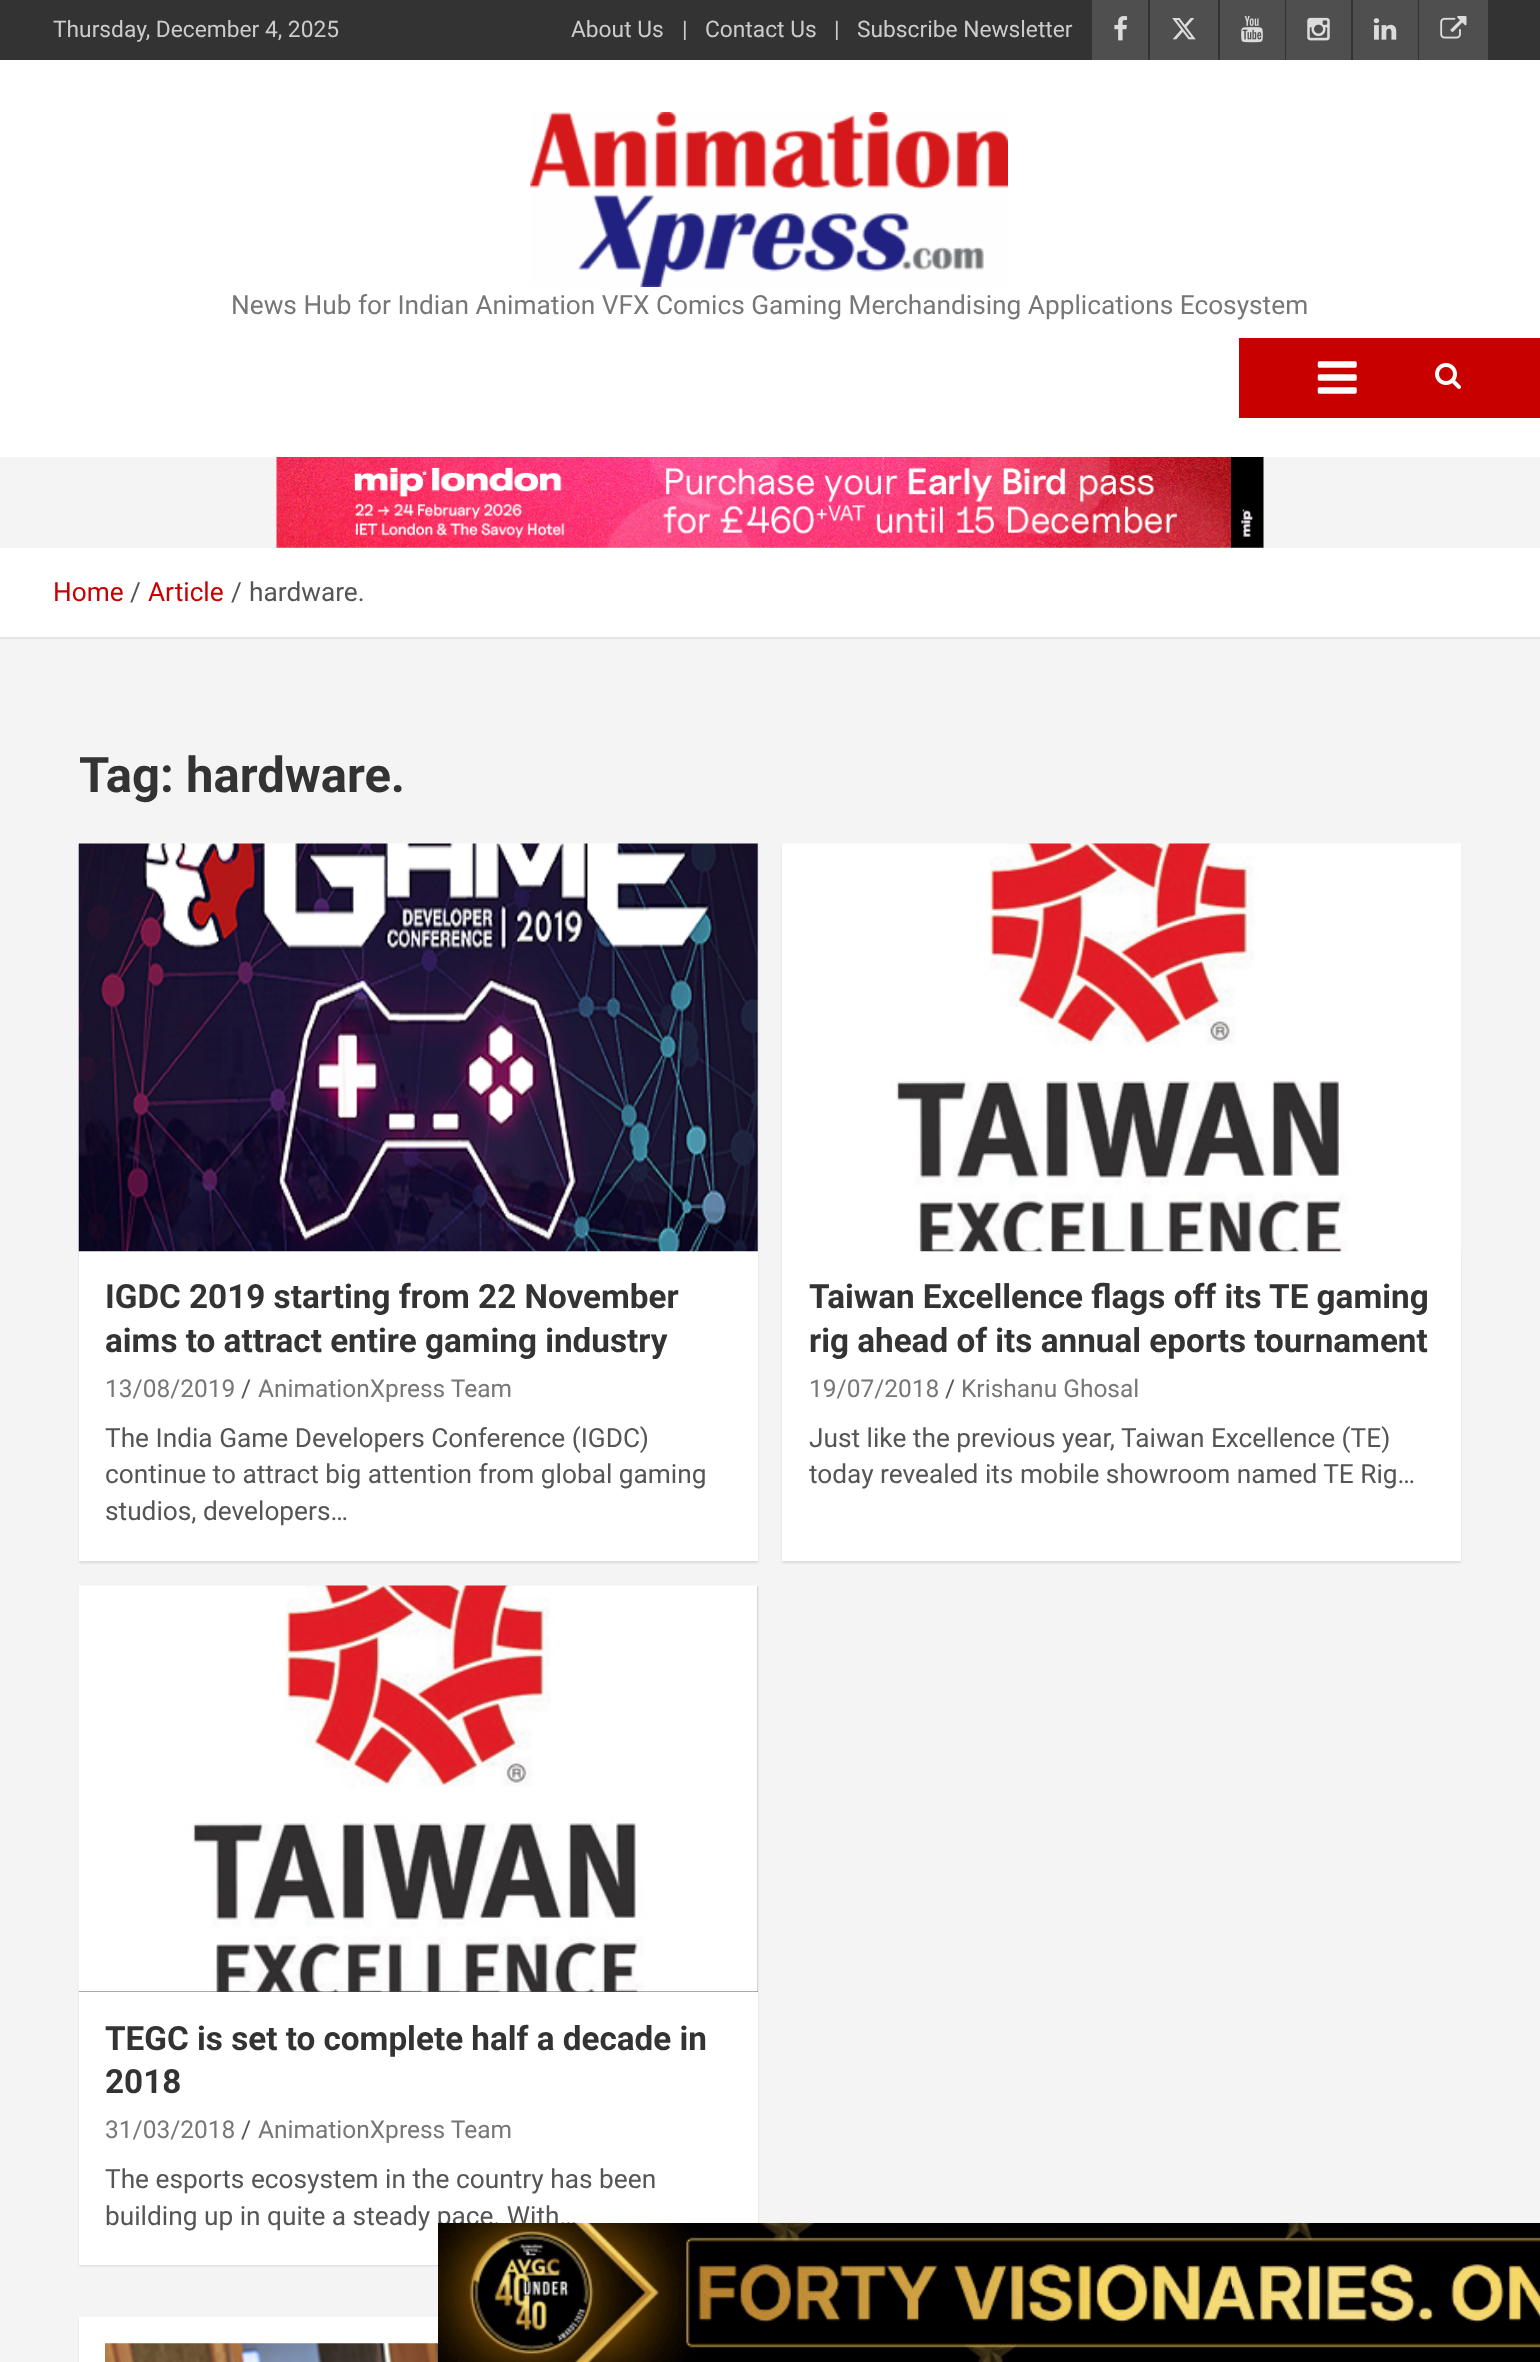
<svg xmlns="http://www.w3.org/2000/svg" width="1540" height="2362">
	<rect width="100%" height="100%" fill="#F4F4F4" />
	<rect x="0" y="0" width="1540" height="60" fill="#333333" />
	<g font-family="Roboto" font-size="22.75" fill="#CCCCCC">
		<text x="53" y="37">Thursday, December 4, 2025</text>
		<text x="571" y="37">About Us</text>
		<text x="682" y="37">|</text>
		<text x="705" y="37">Contact Us</text>
		<text x="834" y="37">|</text>
		<text x="857" y="37">Subscribe Newsletter</text>
	</g>
	<rect x="1092" y="0" width="56" height="60" fill="#4F4F4F" />
	<image x="1114" y="16" width="14" height="25" href="assets/img1.png" />
	<rect x="1150" y="0" width="68" height="60" fill="#4F4F4F" />
	<image x="1172" y="18" width="24" height="22" href="assets/img2.png" />
	<rect x="1220" y="0" width="65" height="60" fill="#4F4F4F" />
	<image x="1241" y="16" width="22" height="27" href="assets/img3.png" />
	<rect x="1286" y="0" width="65" height="60" fill="#4F4F4F" />
	<image x="1307" y="17" width="23" height="24" href="assets/img4.png" />
	<rect x="1353" y="0" width="65" height="60" fill="#4F4F4F" />
	<image x="1373" y="18" width="24" height="22" href="assets/img5.png" />
	<rect x="1419" y="0" width="69" height="60" fill="#4F4F4F" />
	<image x="1440" y="16" width="27" height="23" href="assets/img6.png" />
	<rect x="0" y="60" width="1540" height="397" fill="#FFFFFF" />
	<image x="530" y="112" width="478" height="175" href="assets/img7.png" />
	<text x="231" y="314" font-family="Roboto" font-size="26.25" fill="#777777">News Hub for Indian Animation VFX Comics Gaming Merchandising Applications Ecosystem</text>
	<rect x="1239" y="338" width="301" height="80" fill="#C80000" />
	<image x="1317" y="361" width="40" height="33" href="assets/img8.png" />
	<image x="1435" y="363" width="26" height="26" href="assets/img9.png" />
	<image x="276" y="457" width="988" height="91" href="assets/img10.png" />
	<rect x="0" y="548" width="1540" height="89" fill="#FFFFFF" />
	<rect x="0" y="637" width="1540" height="2" fill="#E6E6E6" />
	<text x="53" y="601" font-family="Roboto" font-size="26.25" fill="#C80000">Home</text>
	<text x="130" y="601" font-family="Roboto" font-size="26.25" fill="#555555">/</text>
	<text x="148" y="601" font-family="Roboto" font-size="26.25" fill="#C80000">Article</text>
	<g font-family="Roboto" font-size="26.25" fill="#555555">
		<text x="231" y="601">/</text>
		<text x="249" y="601">hardware.</text>
	</g>
	<text x="79" y="792" font-family="Roboto" font-size="49" font-weight="700" fill="#333333">Tag: hardware.</text>
	<rect x="79" y="845" width="679" height="718" fill="#000000" fill-opacity="0.1" filter="blur(1px)" />
	<rect x="79" y="844" width="679" height="717" fill="#FFFFFF" />
	<image x="78" y="843" width="680" height="409" href="assets/img11.png" />
	<g font-family="Roboto" font-size="33.25" font-weight="700" fill="#333333">
		<text x="105" y="1308">IGDC 2019 starting from 22 November</text>
		<text x="105" y="1352">aims to attract entire gaming industry</text>
	</g>
	<text x="105" y="1397" font-family="Roboto" font-size="24.5" fill="#777777">13/08/2019</text>
	<text x="241" y="1397" font-family="Roboto" font-size="24.5" fill="#555555">/</text>
	<text x="258" y="1397" font-family="Roboto" font-size="24.5" fill="#777777">AnimationXpress Team</text>
	<g font-family="Roboto" font-size="26.25" fill="#555555">
		<text x="105" y="1447">The India Game Developers Conference (IGDC)</text>
		<text x="105" y="1483">continue to attract big attention from global gaming</text>
		<text x="105" y="1520">studios, developers…</text>
	</g>
	<rect x="782" y="845" width="679" height="718" fill="#000000" fill-opacity="0.1" filter="blur(1px)" />
	<rect x="782" y="844" width="679" height="717" fill="#FFFFFF" />
	<image x="782" y="843" width="680" height="409" href="assets/img12.png" />
	<g font-family="Roboto" font-size="33.25" font-weight="700" fill="#333333">
		<text x="809" y="1308">Taiwan Excellence flags off its TE gaming</text>
		<text x="809" y="1352">rig ahead of its annual eports tournament</text>
	</g>
	<text x="809" y="1397" font-family="Roboto" font-size="24.5" fill="#777777">19/07/2018</text>
	<text x="945" y="1397" font-family="Roboto" font-size="24.5" fill="#555555">/</text>
	<text x="961" y="1397" font-family="Roboto" font-size="24.5" fill="#777777">Krishanu Ghosal</text>
	<g font-family="Roboto" font-size="26.25" fill="#555555">
		<text x="809" y="1447">Just like the previous year, Taiwan Excellence (TE)</text>
		<text x="809" y="1483">today revealed its mobile showroom named TE Rig…</text>
	</g>
	<rect x="79" y="1587" width="679" height="679" fill="#000000" fill-opacity="0.1" filter="blur(1px)" />
	<rect x="79" y="1992" width="679" height="273" fill="#FFFFFF" />
	<rect x="79" y="1586" width="679" height="406" fill="#555555" />
	<image x="78" y="1585" width="680" height="407" href="assets/img13.png" />
	<g font-family="Roboto" font-size="33.25" font-weight="700" fill="#333333">
		<text x="105" y="2050">TEGC is set to complete half a decade in</text>
		<text x="105" y="2093">2018</text>
	</g>
	<text x="105" y="2138" font-family="Roboto" font-size="24.5" fill="#777777">31/03/2018</text>
	<text x="241" y="2138" font-family="Roboto" font-size="24.5" fill="#555555">/</text>
	<text x="258" y="2138" font-family="Roboto" font-size="24.5" fill="#777777">AnimationXpress Team</text>
	<g font-family="Roboto" font-size="26.25" fill="#555555">
		<text x="105" y="2188">The esports ecosystem in the country has been</text>
		<text x="105" y="2225">building up in quite a steady pace. With…</text>
	</g>
	<rect x="79" y="2319" width="1382" height="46" fill="#000000" fill-opacity="0.1" filter="blur(1px)" />
	<rect x="79" y="2317" width="359" height="45" fill="#FFFFFF" />
	<image x="105" y="2343" width="333" height="19" href="assets/img14.png" />
	<image x="438" y="2223" width="1102" height="139" href="assets/img15.png" />
</svg>
